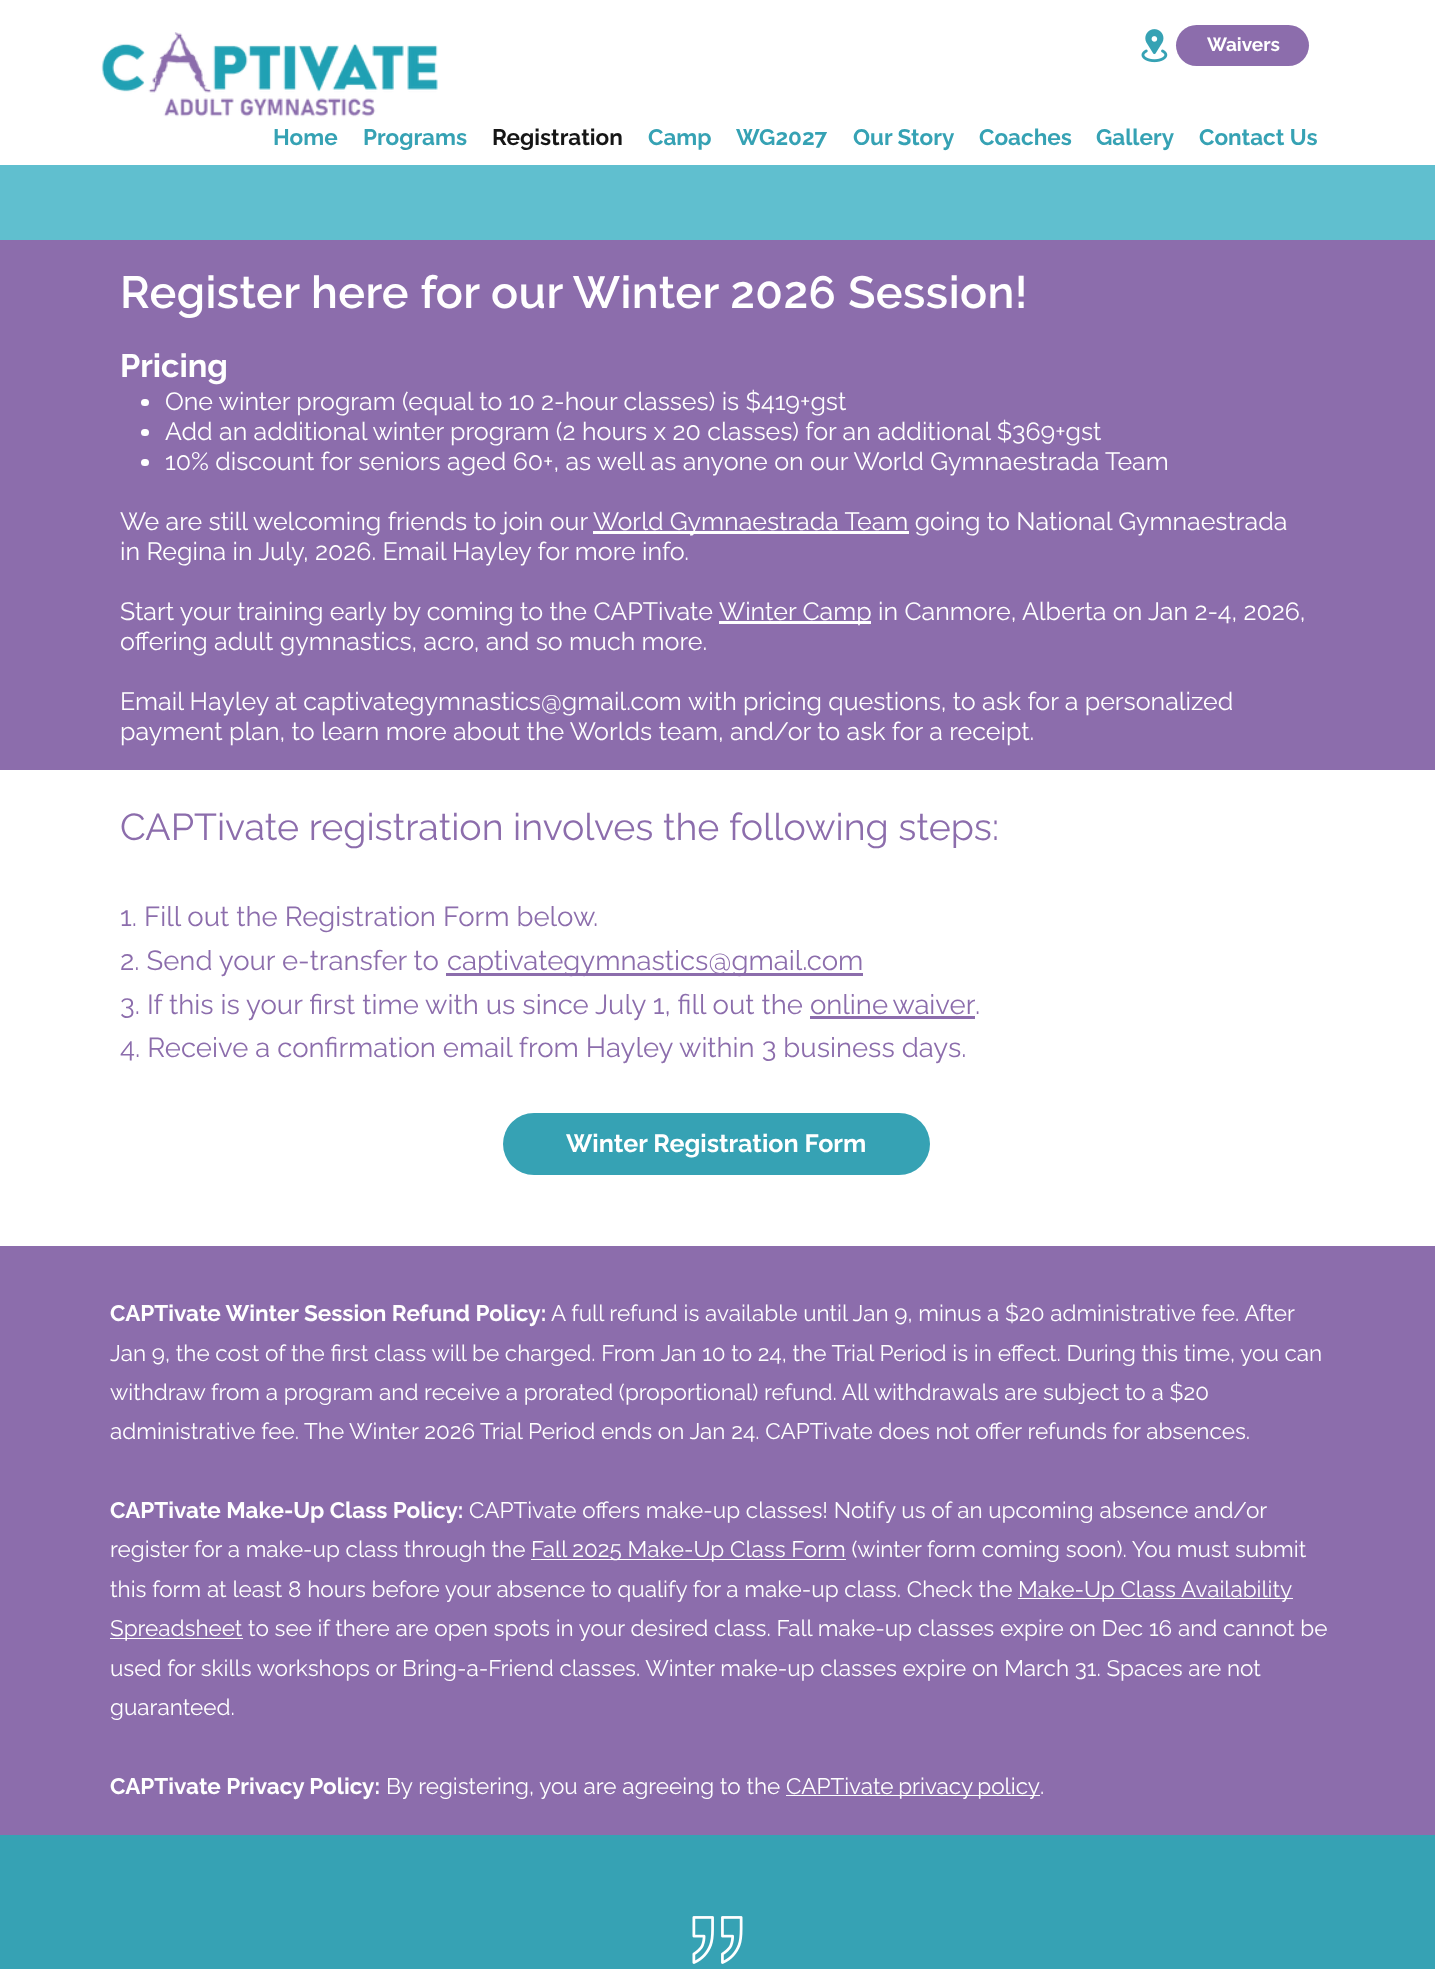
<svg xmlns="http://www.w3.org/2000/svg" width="1435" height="1969">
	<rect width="100%" height="100%" fill="#FFFFFF" />
	<image x="101" y="32" width="337" height="85" href="assets/img1.png" />
	<image x="1141" y="29" width="27" height="34" href="assets/img2.png" />
	<rect x="1176" y="25" width="133" height="41" rx="20.5" fill="#8C6DAC" />
	<text x="1207" y="51" font-family="Raleway" font-size="19" font-weight="700" fill="#FFFFFF">Waivers</text>
	<g font-family="Raleway" font-size="22.5" font-weight="700" fill="#36A2B4">
		<text x="273" y="145">Home</text>
		<text x="363" y="145">Programs</text>
	</g>
	<text x="492" y="145" font-family="Raleway" font-size="22.5" font-weight="700" fill="#161616">Registration</text>
	<g font-family="Raleway" font-size="22.5" font-weight="700" fill="#36A2B4">
		<text x="648" y="145">Camp</text>
		<text x="736" y="145">WG2027</text>
		<text x="853" y="145">Our Story</text>
		<text x="979" y="145">Coaches</text>
		<text x="1096" y="145">Gallery</text>
		<text x="1199" y="145">Contact Us</text>
	</g>
	<rect x="0" y="165" width="1435" height="75" fill="#60BFCF" />
	<rect x="0" y="240" width="1435" height="530" fill="#8C6DAC" />
	<text x="120" y="308" font-family="Raleway" font-size="45" font-weight="600" letter-spacing="0.45" fill="#FFFFFF">Register here for our Winter 2026 Session!</text>
	<text x="120" y="377" font-family="Raleway" font-size="32.5" font-weight="700" fill="#FFFFFF">Pricing</text>
	<rect x="141" y="399" width="8" height="7" rx="3.5" fill="#FFFFFF" />
	<text x="165" y="410" font-family="Raleway" font-size="25" fill="#FFFFFF">One winter program (equal to 10 2-hour classes) is $419+gst</text>
	<rect x="141" y="429" width="8" height="7" rx="3.5" fill="#FFFFFF" />
	<text x="165" y="440" font-family="Raleway" font-size="25" fill="#FFFFFF">Add an additional winter program (2 hours x 20 classes) for an additional $369+gst</text>
	<rect x="141" y="459" width="8" height="7" rx="3.5" fill="#FFFFFF" />
	<g font-family="Raleway" font-size="25" fill="#FFFFFF">
		<text x="165" y="470">10% discount for seniors aged 60+, as well as anyone on our World Gymnaestrada Team</text>
		<text x="120" y="530">We are still welcoming friends to join our</text>
	</g>
	<rect x="593" y="531" width="316" height="3" fill="#FFFFFF" />
	<g font-family="Raleway" font-size="25" fill="#FFFFFF">
		<text x="593" y="530">World Gymnaestrada Team going to National Gymnaestrada</text>
		<text x="120" y="560">in Regina in July, 2026. Email Hayley for more info.</text>
		<text x="120" y="620">Start your training early by coming to the CAPTivate</text>
	</g>
	<rect x="719" y="621" width="152" height="3" fill="#FFFFFF" />
	<g font-family="Raleway" font-size="25" fill="#FFFFFF">
		<text x="719" y="620">Winter Camp in Canmore, Alberta on Jan 2-4, 2026,</text>
		<text x="120" y="650">offering adult gymnastics, acro, and so much more.</text>
		<text x="120" y="710">Email Hayley at captivategymnastics@gmail.com</text>
		<text x="688" y="710">with pricing questions, to ask for a personalized</text>
		<text x="120" y="740">payment plan, to learn more about the Worlds team, and/or to ask for a receipt.</text>
	</g>
	<text x="120" y="840" font-family="Raleway" font-size="37.5" fill="#8C6DAC">CAPTivate registration involves the following steps:</text>
	<g font-family="Raleway" font-size="27.5" fill="#8C6DAC">
		<text x="120" y="926">1. Fill out the Registration Form below</text>
		<text x="593" y="926">.</text>
		<text x="120" y="970">2. Send your e-transfer to</text>
	</g>
	<rect x="446" y="973" width="417" height="3" fill="#8C6DAC" />
	<g font-family="Raleway" font-size="27.5" fill="#8C6DAC">
		<text x="447" y="970">captivategymnastics@gmail.com</text>
		<text x="120" y="1014">3. If this is your first time with us since July 1, fill out the onlin</text>
		<text x="872" y="1014" word-spacing="-2">e waiver</text>
		<text x="975" y="1014">.</text>
	</g>
	<rect x="810" y="1016" width="165" height="3" fill="#8C6DAC" />
	<text x="120" y="1057" font-family="Raleway" font-size="27.5" fill="#8C6DAC">4. Receive a confirmation email from Hayley within 3 business days.</text>
	<rect x="503" y="1113" width="427" height="62" rx="31" fill="#36A2B4" />
	<text x="566" y="1152" font-family="Raleway" font-size="25" font-weight="700" fill="#FFFFFF">Winter Registration Form</text>
	<rect x="0" y="1246" width="1435" height="589" fill="#8C6DAC" />
	<text x="110" y="1321" font-family="Raleway" font-size="22.5" font-weight="700" fill="#FFFFFF">CAPTivate Winter Session Refund Policy:</text>
	<g font-family="Raleway" font-size="22.5" fill="#FFFFFF">
		<text x="551" y="1321">A full refund is available until Jan 9, minus a $20 administrative fee. After</text>
		<text x="110" y="1361">Jan 9, the cost of the first class will be charged. From Jan 10 to 24, the Trial Period is in effect. During this time, you can</text>
		<text x="110" y="1400">withdraw from a program and receive a prorated (proportional) refund. All withdrawals are subject to a $20</text>
		<text x="110" y="1439">administrative fee. The Winter 2026 Trial Period ends on Jan 24. CAPTivate does not offer refunds for absences.</text>
	</g>
	<text x="110" y="1518" font-family="Raleway" font-size="22.5" font-weight="700" fill="#FFFFFF">CAPTivate Make-Up Class Policy:</text>
	<g font-family="Raleway" font-size="22.5" fill="#FFFFFF">
		<text x="469" y="1518">CAPTivate offers make-up classes! Notify us of an upcoming absence and/or</text>
		<text x="110" y="1557">register for a make-up class through the</text>
	</g>
	<rect x="531" y="1559" width="315" height="1" fill="#FFFFFF" />
	<g font-family="Raleway" font-size="22.5" fill="#FFFFFF">
		<text x="531" y="1557">Fall 2025 Make-Up Class Form (winter form coming soon). You must submit</text>
		<text x="110" y="1597">this form at least 8 hours before your absence to qualify for a make-up class. Check the</text>
	</g>
	<rect x="1018" y="1598" width="275" height="1" fill="#FFFFFF" />
	<text x="1018" y="1597" font-family="Raleway" font-size="22.5" fill="#FFFFFF">Make-Up Class Availability</text>
	<rect x="110" y="1638" width="133" height="1" fill="#FFFFFF" />
	<g font-family="Raleway" font-size="22.5" fill="#FFFFFF">
		<text x="110" y="1636">Spreadsheet to see if there are open spots in your desired class. Fall make-up classes expire on Dec 16 and cannot be</text>
		<text x="110" y="1676">used for skills workshops or Bring-a-Friend classes. Winter make-up classes expire on March 31. Spaces are not</text>
		<text x="110" y="1715">guaranteed.</text>
	</g>
	<text x="110" y="1794" font-family="Raleway" font-size="22.5" font-weight="700" fill="#FFFFFF">CAPTivate Privacy Policy:</text>
	<text x="386" y="1794" font-family="Raleway" font-size="22.5" fill="#FFFFFF">By registering, you are agreeing to the</text>
	<rect x="786" y="1795" width="254" height="1" fill="#FFFFFF" />
	<g font-family="Raleway" font-size="22.5" fill="#FFFFFF">
		<text x="786" y="1794" word-spacing="-1">CAPTivate privacy policy</text>
		<text x="1040" y="1794">.</text>
	</g>
	<rect x="0" y="1835" width="1435" height="134" fill="#36A2B4" />
	<image x="692" y="1916" width="51" height="48" href="assets/img3.png" />
</svg>
